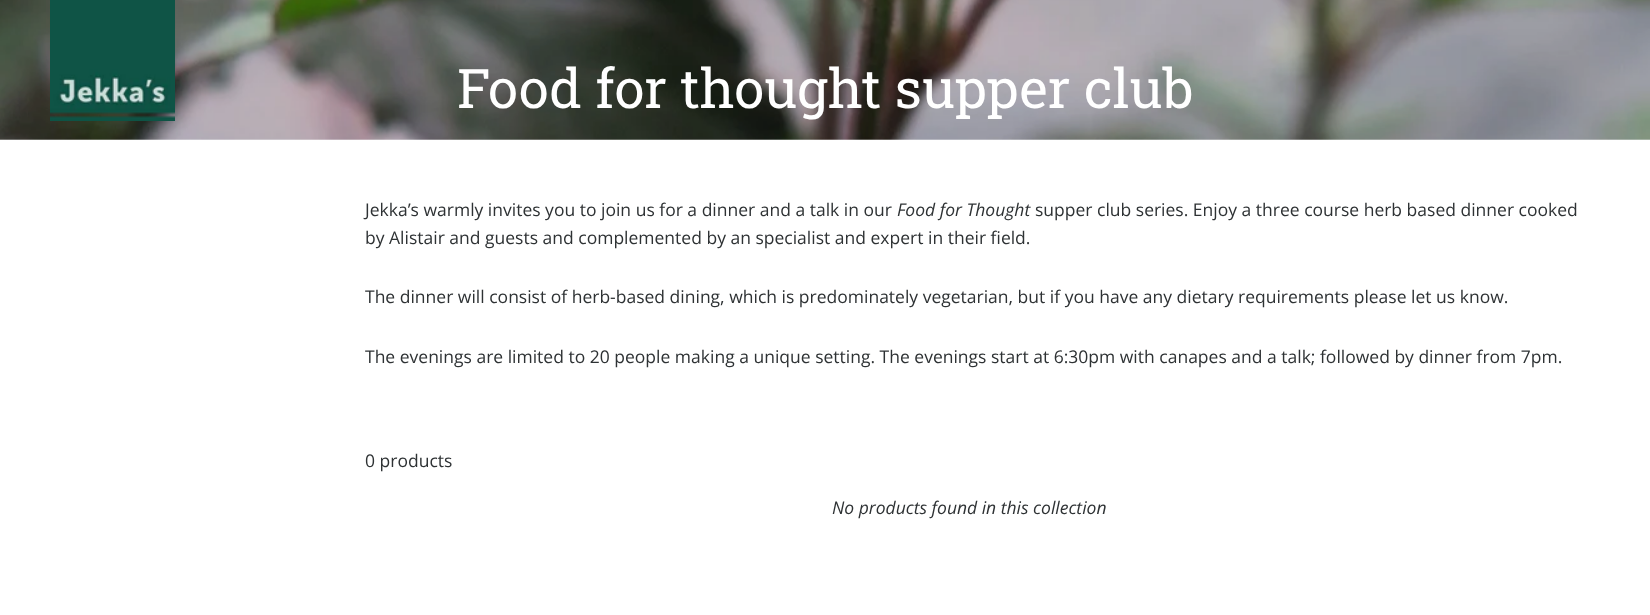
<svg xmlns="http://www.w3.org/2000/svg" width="1650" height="615">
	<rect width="100%" height="100%" fill="#FFFFFF" />
	<image x="0" y="0" width="1650" height="140" href="assets/img2.png" />
	<image x="50" y="0" width="125" height="121" href="assets/img1.png" />
	<text x="457" y="108" font-family="Roboto Slab" font-size="54.4" fill="#FFFFFF">Food for thought supper club</text>
	<text x="365" y="216" font-family="Open Sans" font-size="17.5" fill="#2E3234">Jekka’s warmly invites you to join us for a dinner and a talk in our</text>
	<text x="897" y="216" font-family="Open Sans" font-size="17.5" font-style="italic" fill="#2E3234">Food for Thought</text>
	<g font-family="Open Sans" font-size="17.5" fill="#2E3234">
		<text x="1035" y="216">supper club series. Enjoy a three course herb based dinner cooked</text>
		<text x="365" y="244">by Alistair and guests and complemented by an specialist and expert in their field.</text>
		<text x="365" y="303">The dinner will consist of herb-based dining, which is predominately vegetarian, but if you have any dietary requirements please let us know.</text>
		<text x="365" y="363">The evenings are limited to 20 people making a unique setting. The evenings start at 6:30pm with canapes and a talk; followed by dinner from 7pm.</text>
		<text x="365" y="467">0 products</text>
	</g>
	<text x="832" y="514" font-family="Open Sans" font-size="17.5" font-style="italic" fill="#2E3234">No products found in this collection</text>
</svg>
